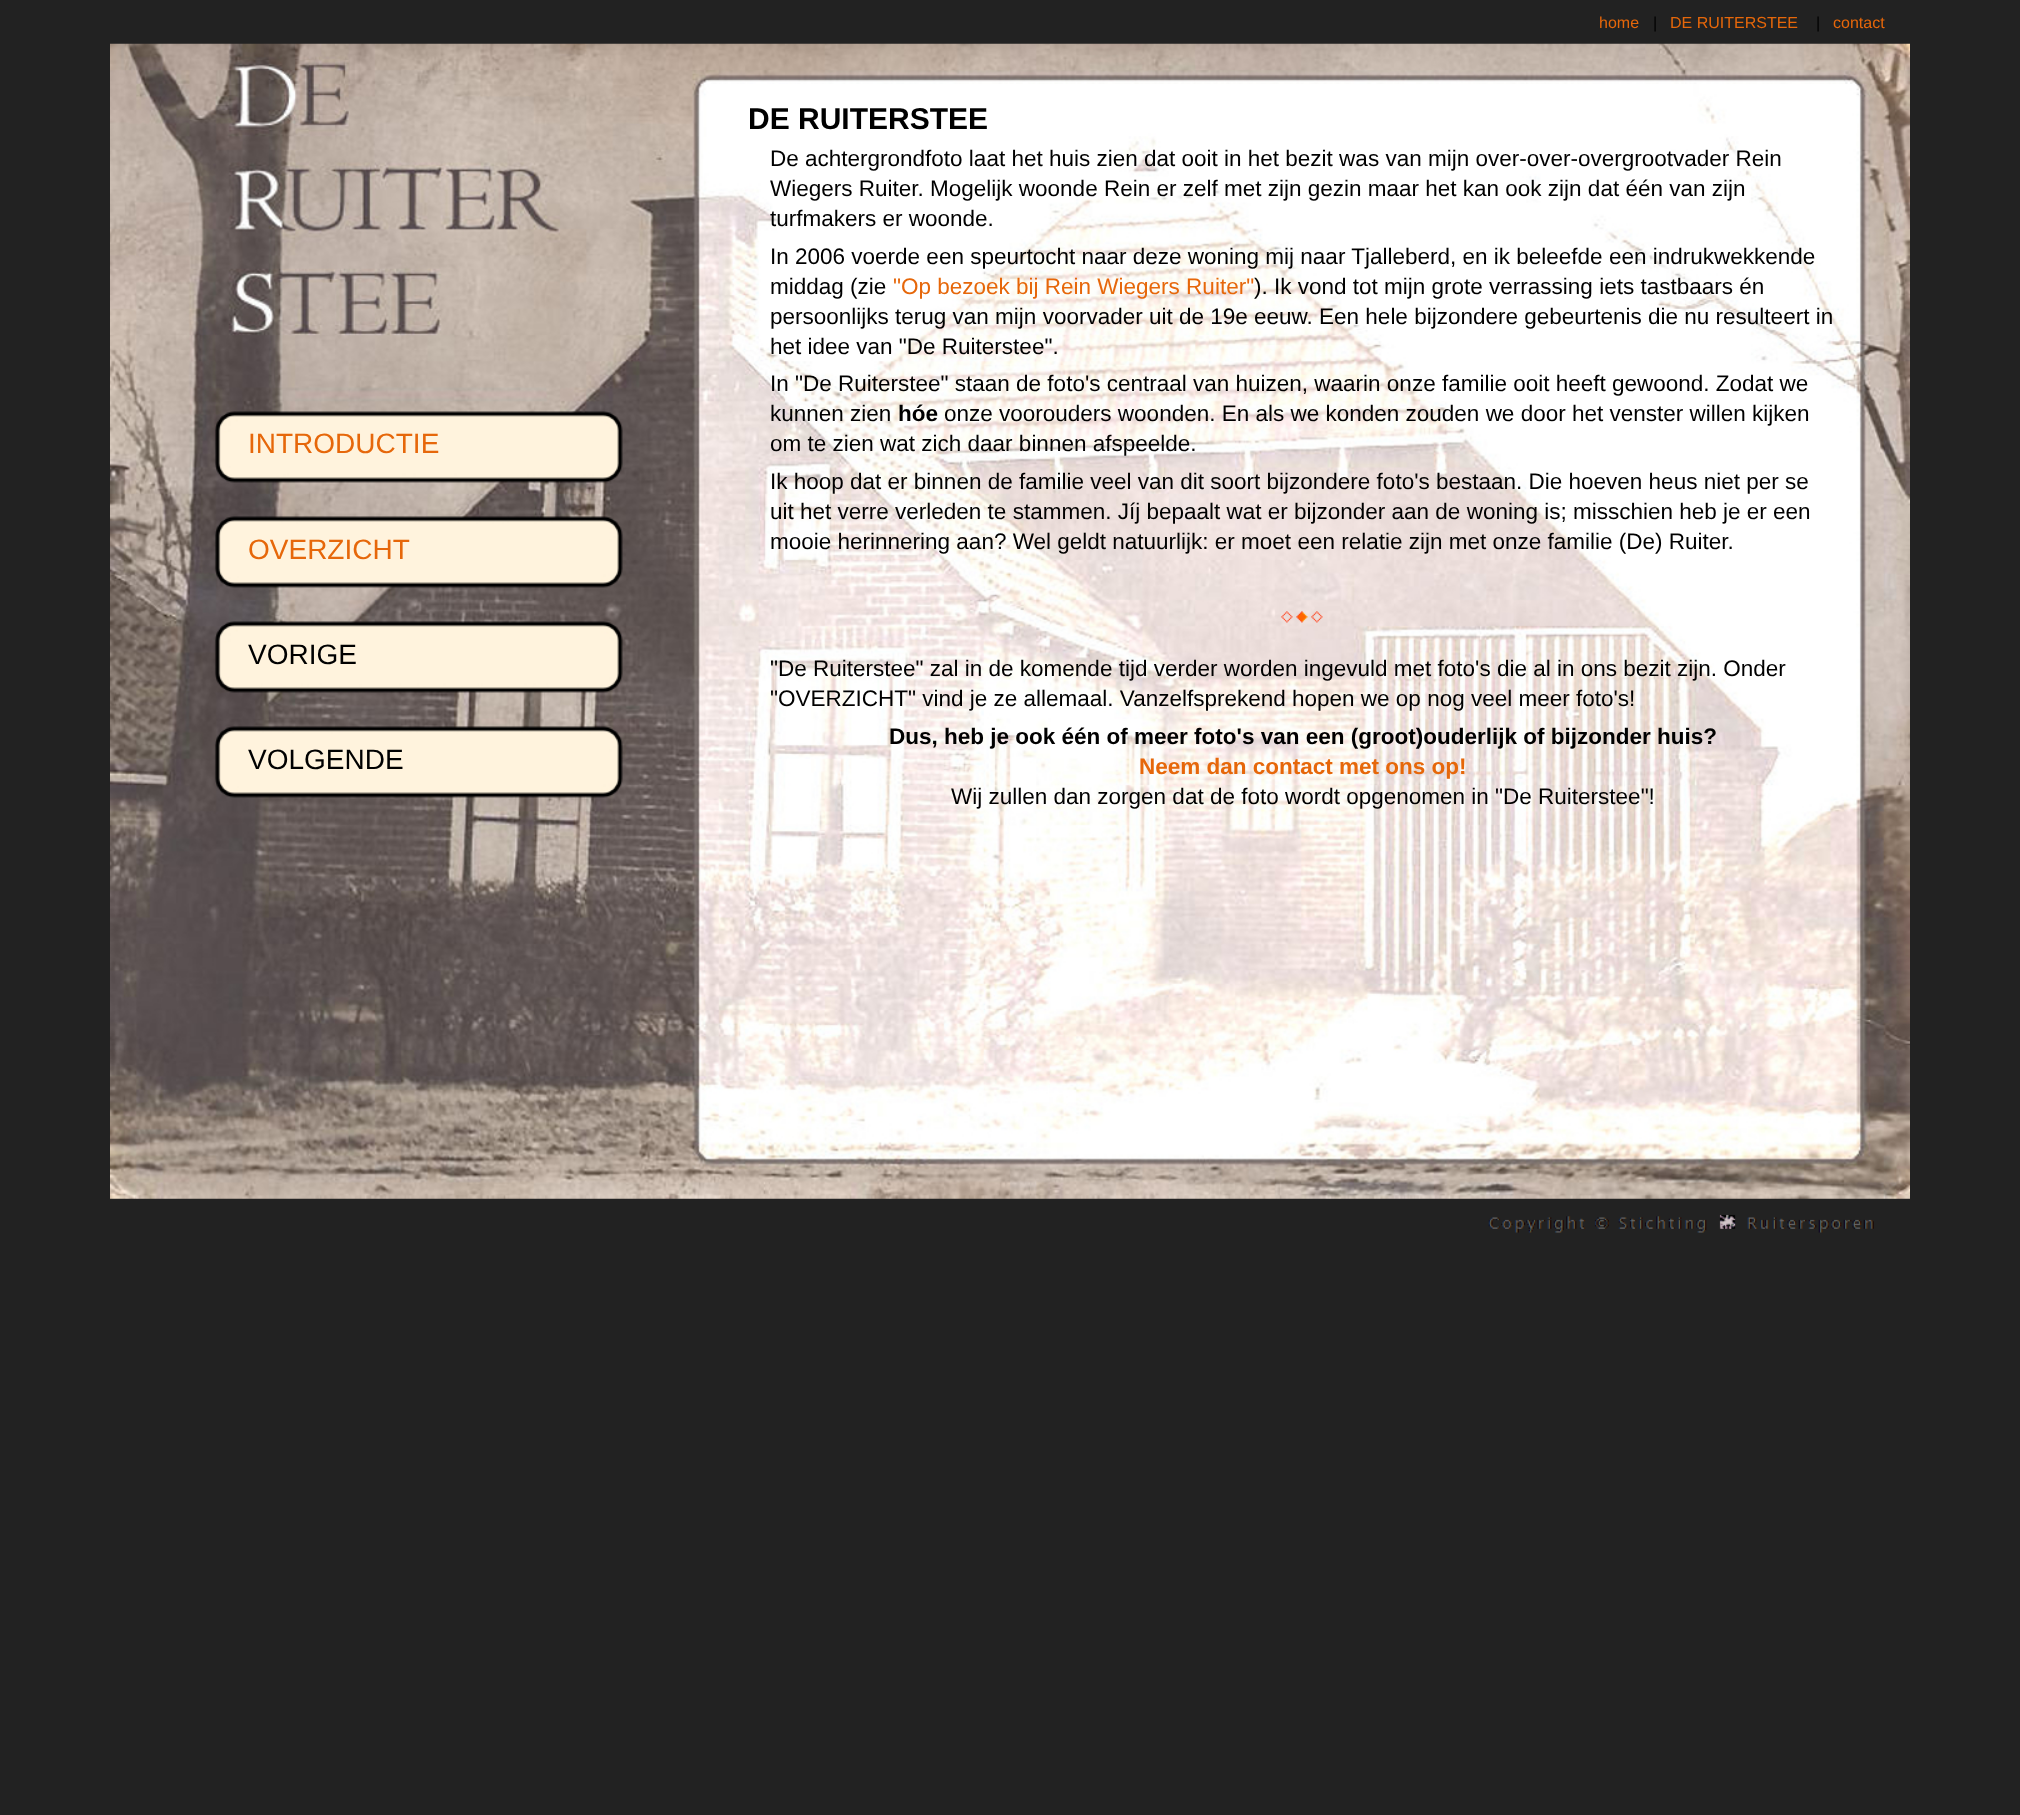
<svg xmlns="http://www.w3.org/2000/svg" width="2020" height="1815">
	<rect width="100%" height="100%" fill="#222222" />
	<text x="1599" y="28" font-family="Liberation Sans" font-size="16" fill="#E6670A">home</text>
	<text x="1653" y="28" font-family="Liberation Sans" font-size="16" fill="#000000">|</text>
	<text x="1670" y="28" font-family="Liberation Sans" font-size="16" fill="#E6670A">DE RUITERSTEE</text>
	<text x="1816" y="28" font-family="Liberation Sans" font-size="16" fill="#000000">|</text>
	<text x="1833" y="28" font-family="Liberation Sans" font-size="16" fill="#E6670A">contact</text>
	<image x="110" y="43" width="1800" height="1156" href="assets/img1.png" />
	<g font-family="Liberation Sans" font-size="28" fill="#E6670A">
		<text x="248" y="453">INTRODUCTIE</text>
		<text x="248" y="559">OVERZICHT</text>
	</g>
	<g font-family="Liberation Sans" font-size="28" fill="#000000">
		<text x="248" y="664">VORIGE</text>
		<text x="248" y="769">VOLGENDE</text>
	</g>
	<text x="748" y="129" font-family="Liberation Sans" font-size="30" font-weight="700" fill="#000000">DE RUITERSTEE</text>
	<g font-family="Liberation Sans" font-size="22.5" fill="#000000">
		<text x="770" y="166">De achtergrondfoto laat het huis zien dat ooit in het bezit was van mijn over-over-overgrootvader Rein</text>
		<text x="770" y="196">Wiegers Ruiter. Mogelijk woonde Rein er zelf met zijn gezin maar het kan ook zijn dat één van zijn</text>
		<text x="770" y="226">turfmakers er woonde.</text>
		<text x="770" y="264">In 2006 voerde een speurtocht naar deze woning mij naar Tjalleberd, en ik beleefde een indrukwekkende</text>
		<text x="770" y="294">middag (zie</text>
	</g>
	<text x="893" y="294" font-family="Liberation Sans" font-size="22.5" fill="#E6670A">"Op bezoek bij Rein Wiegers Ruiter"</text>
	<g font-family="Liberation Sans" font-size="22.5" fill="#000000">
		<text x="1254" y="294">). Ik vond tot mijn grote verrassing iets tastbaars én</text>
		<text x="770" y="324">persoonlijks terug van mijn voorvader uit de 19e eeuw. Een hele bijzondere gebeurtenis die nu resulteert in</text>
		<text x="770" y="354">het idee van "De Ruiterstee".</text>
		<text x="770" y="391">In "De Ruiterstee" staan de foto's centraal van huizen, waarin onze familie ooit heeft gewoond. Zodat we</text>
		<text x="770" y="421">kunnen zien</text>
	</g>
	<text x="898" y="421" font-family="Liberation Sans" font-size="22.5" font-weight="700" fill="#000000">hóe</text>
	<g font-family="Liberation Sans" font-size="22.5" fill="#000000">
		<text x="944" y="421">onze voorouders woonden. En als we konden zouden we door het venster willen kijken</text>
		<text x="770" y="451">om te zien wat zich daar binnen afspeelde.</text>
		<text x="770" y="489">Ik hoop dat er binnen de familie veel van dit soort bijzondere foto's bestaan. Die hoeven heus niet per se</text>
		<text x="770" y="519">uit het verre verleden te stammen. Jíj bepaalt wat er bijzonder aan de woning is; misschien heb je er een</text>
		<text x="770" y="549">mooie herinnering aan? Wel geldt natuurlijk: er moet een relatie zijn met onze familie (De) Ruiter.</text>
	</g>
	<image x="1281" y="611" width="12" height="12" href="assets/img2.png" />
	<image x="1296" y="611" width="12" height="12" href="assets/img3.png" />
	<image x="1311" y="611" width="12" height="12" href="assets/img4.png" />
	<g font-family="Liberation Sans" font-size="22.5" fill="#000000">
		<text x="770" y="676">"De Ruiterstee" zal in de komende tijd verder worden ingevuld met foto's die al in ons bezit zijn. Onder</text>
		<text x="770" y="706">"OVERZICHT" vind je ze allemaal. Vanzelfsprekend hopen we op nog veel meer foto's!</text>
	</g>
	<text x="889" y="744" font-family="Liberation Sans" font-size="22.5" font-weight="700" fill="#000000">Dus, heb je ook één of meer foto's van een (groot)ouderlijk of bijzonder huis?</text>
	<text x="1139" y="774" font-family="Liberation Sans" font-size="22.5" font-weight="700" fill="#E6670A">Neem dan contact met ons op!</text>
	<text x="951" y="804" font-family="Liberation Sans" font-size="22.5" fill="#000000">Wij zullen dan zorgen dat de foto wordt opgenomen in "De Ruiterstee"!</text>
	<image x="1488" y="1214" width="386" height="19" href="assets/img5.png" />
</svg>
